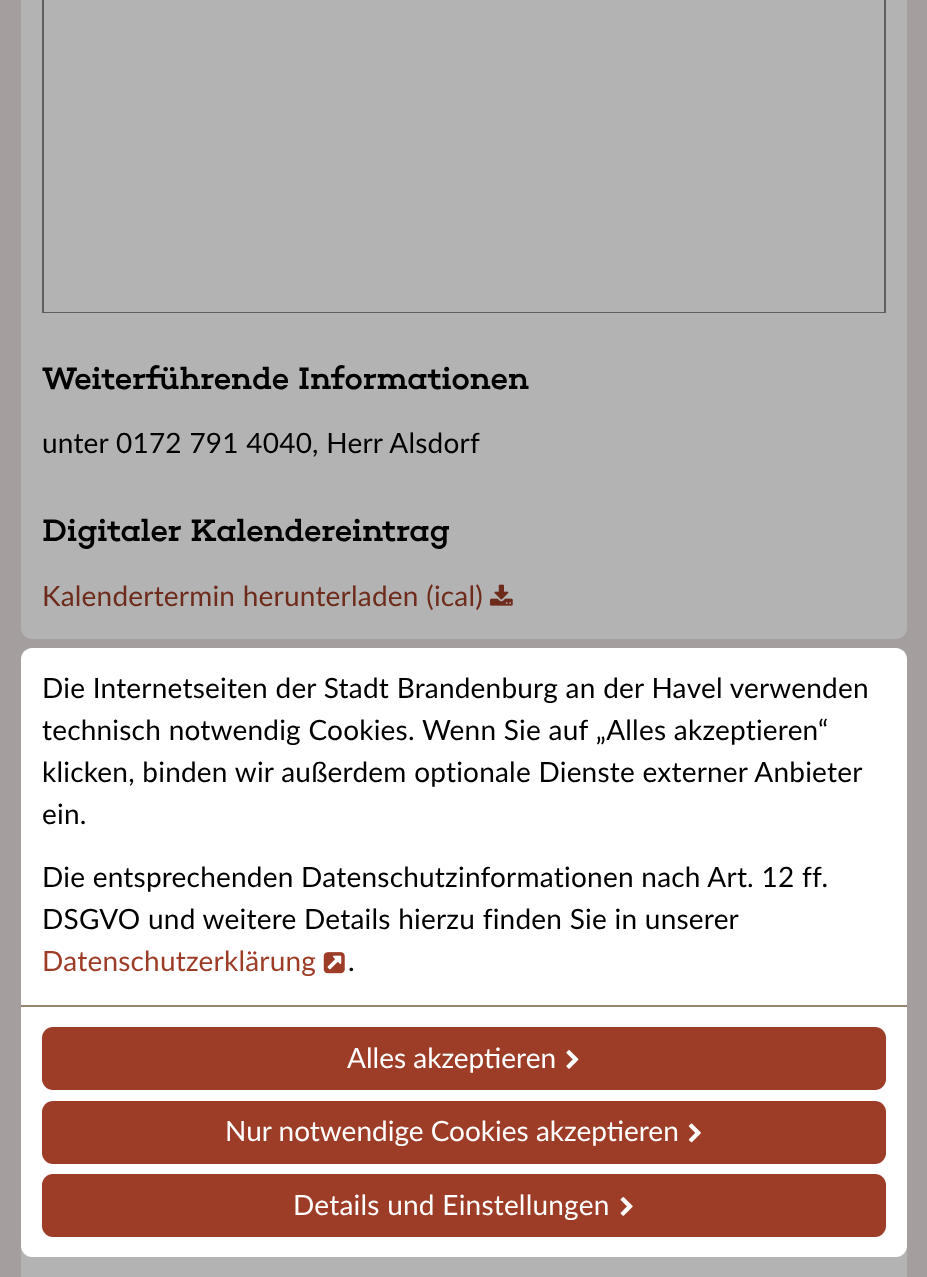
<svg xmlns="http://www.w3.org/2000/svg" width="927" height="1277">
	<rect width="100%" height="100%" fill="#A49F9E" />
	<rect x="21" y="-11" width="886" height="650" rx="11" fill="#B3B3B3" />
	<rect x="43" y="-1" width="842" height="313" fill="none" stroke="#5F5F5F" stroke-width="2" />
	<rect x="44" y="311" width="840" height="1" fill="#B3B3B3" />
	<text x="42" y="389" word-spacing="0.25" font-family="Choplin" font-size="31.5" font-weight="500" letter-spacing="0.2" fill="#000000">Weiterführende Informationen</text>
	<text x="42" y="453" word-spacing="0.25" font-family="Lato" font-size="28" letter-spacing="0.2" fill="#000000">unter 0172 791 4040, Herr Alsdorf</text>
	<text x="42" y="541" word-spacing="0.25" font-family="Choplin" font-size="31.5" font-weight="500" letter-spacing="0.2" fill="#000000">Digitaler Kalendereintrag</text>
	<text x="42" y="606" word-spacing="0.25" font-family="Lato" font-size="28" letter-spacing="0.2" fill="#6E2B1B">Kalendertermin herunterladen (ical)</text>
	<image x="490" y="584" width="23" height="22" href="assets/img1.png" />
	<rect x="21" y="1246" width="886" height="31" fill="#B3B3B3" />
	<path d="M32 648H896C902 648 907 653 907 659V1005H21V659C21 653 26 648 32 648Z" fill="#FFFFFF" />
	<g font-family="Lato" font-size="28" letter-spacing="0.2" fill="#000000">
		<text x="42" y="698" word-spacing="0.25">Die Internetseiten der Stadt Brandenburg an der Havel verwenden</text>
		<text x="42" y="740" word-spacing="0.25">technisch notwendig Cookies. Wenn Sie auf „Alles akzeptieren“</text>
		<text x="42" y="782" word-spacing="0.25">klicken, binden wir außerdem optionale Dienste externer Anbieter</text>
		<text x="42" y="824">ein.</text>
		<text x="42" y="887" word-spacing="0.25">Die entsprechenden Datenschutzinformationen nach Art. 12 ff.</text>
		<text x="42" y="929" word-spacing="0.25">DSGVO und weitere Details hierzu finden Sie in unserer</text>
	</g>
	<text x="42" y="971" font-family="Lato" font-size="28" letter-spacing="0.2" fill="#9D3D27">Datenschutzerklärung</text>
	<image x="323" y="952" width="22" height="22" href="assets/img2.png" />
	<text x="348" y="971" font-family="Lato" font-size="28" letter-spacing="0.2" fill="#000000">.</text>
	<path d="M21 1005H907V1246C907 1252 902 1257 896 1257H32C26 1257 21 1252 21 1246Z" fill="#FFFFFF" />
	<rect x="21" y="1005" width="886" height="2" fill="#96866D" />
	<rect x="42" y="1027" width="844" height="63" rx="11" fill="#9D3D27" />
	<text x="347" y="1068" font-family="Lato" font-size="28" fill="#FFFFFF">Alles akzeptieren</text>
	<image x="566" y="1050" width="13" height="19" href="assets/img3.png" />
	<rect x="42" y="1101" width="844" height="63" rx="11" fill="#9D3D27" />
	<text x="225" y="1141" font-family="Lato" font-size="28" fill="#FFFFFF">Nur notwendige Cookies akzeptieren</text>
	<image x="688" y="1123" width="13" height="20" href="assets/img4.png" />
	<rect x="42" y="1174" width="844" height="63" rx="11" fill="#9D3D27" />
	<text x="293" y="1215" word-spacing="0.25" font-family="Lato" font-size="28" letter-spacing="0.2" fill="#FFFFFF">Details und Einstellungen</text>
	<image x="620" y="1197" width="13" height="19" href="assets/img5.png" />
</svg>
